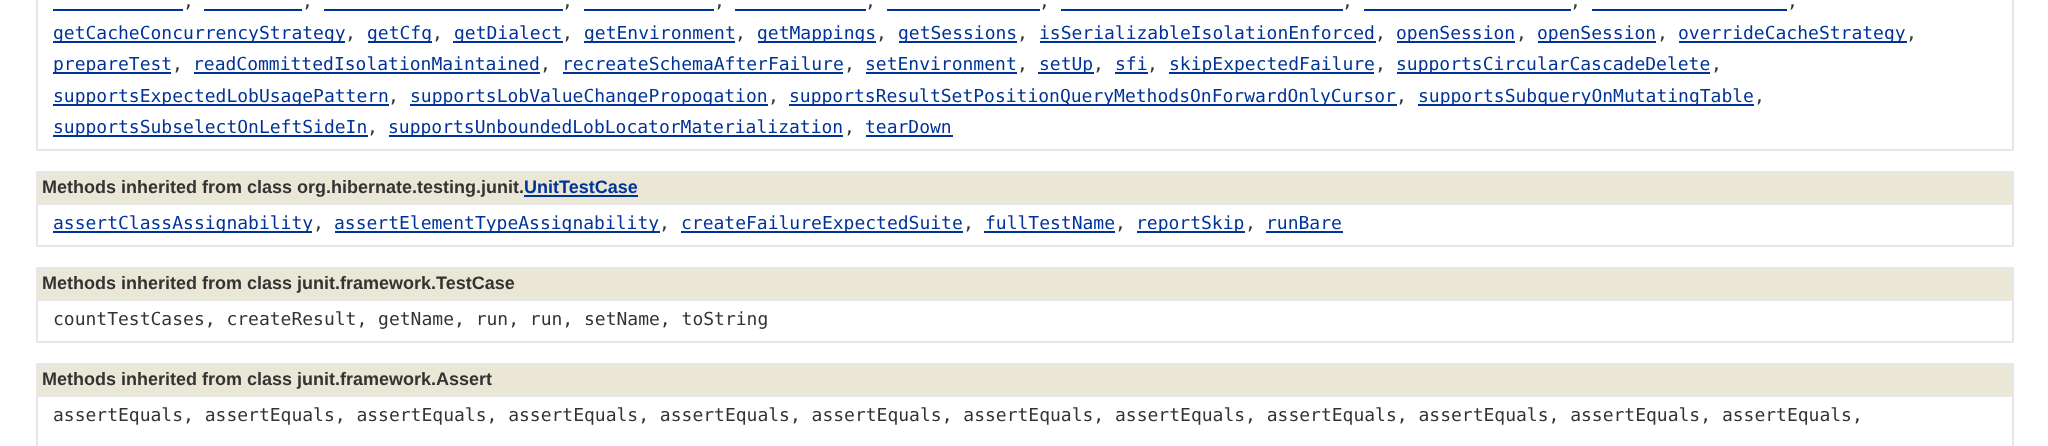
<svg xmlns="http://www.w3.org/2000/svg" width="2048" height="446">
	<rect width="100%" height="100%" fill="#FFFFFF" />
	<rect x="2012" y="0" width="2" height="150" fill="#E6E7E8" />
	<rect x="36" y="149" width="1977" height="2" fill="#E6E7E8" />
	<rect x="36" y="0" width="2" height="150" fill="#E6E7E8" />
	<text x="183" y="7" font-family="DejaVu Sans Mono" font-size="18" fill="#333333">,</text>
	<rect x="53" y="9" width="130" height="2" fill="#003399" />
	<text x="302" y="7" font-family="DejaVu Sans Mono" font-size="18" fill="#333333">,</text>
	<rect x="204" y="9" width="98" height="2" fill="#003399" />
	<text x="562" y="7" font-family="DejaVu Sans Mono" font-size="18" fill="#333333">,</text>
	<rect x="324" y="9" width="239" height="2" fill="#003399" />
	<text x="714" y="7" font-family="DejaVu Sans Mono" font-size="18" fill="#333333">,</text>
	<rect x="584" y="9" width="130" height="2" fill="#003399" />
	<text x="865" y="7" font-family="DejaVu Sans Mono" font-size="18" fill="#333333">,</text>
	<rect x="735" y="9" width="131" height="2" fill="#003399" />
	<text x="1039" y="7" font-family="DejaVu Sans Mono" font-size="18" fill="#333333">,</text>
	<rect x="887" y="9" width="153" height="2" fill="#003399" />
	<text x="1342" y="7" font-family="DejaVu Sans Mono" font-size="18" fill="#333333">,</text>
	<rect x="1061" y="9" width="282" height="2" fill="#003399" />
	<text x="1570" y="7" font-family="DejaVu Sans Mono" font-size="18" fill="#333333">,</text>
	<rect x="1364" y="9" width="207" height="2" fill="#003399" />
	<text x="1787" y="7" font-family="DejaVu Sans Mono" font-size="18" fill="#333333">,</text>
	<rect x="1592" y="9" width="195" height="2" fill="#003399" />
	<rect x="53" y="41" width="292" height="2" fill="#003399" />
	<text x="53" y="39" font-family="DejaVu Sans Mono" font-size="18" fill="#003399">getCacheConcurrencyStrategy</text>
	<text x="345" y="39" font-family="DejaVu Sans Mono" font-size="18" fill="#333333">,</text>
	<rect x="368" y="41" width="64" height="2" fill="#003399" />
	<text x="367" y="39" font-family="DejaVu Sans Mono" font-size="18" fill="#003399">getCfg</text>
	<text x="432" y="39" font-family="DejaVu Sans Mono" font-size="18" fill="#333333">,</text>
	<rect x="453" y="41" width="110" height="2" fill="#003399" />
	<text x="454" y="39" font-family="DejaVu Sans Mono" font-size="18" fill="#003399">getDialect</text>
	<text x="562" y="39" font-family="DejaVu Sans Mono" font-size="18" fill="#333333">,</text>
	<rect x="584" y="41" width="151" height="2" fill="#003399" />
	<text x="584" y="39" font-family="DejaVu Sans Mono" font-size="18" fill="#003399">getEnvironment</text>
	<text x="735" y="39" font-family="DejaVu Sans Mono" font-size="18" fill="#333333">,</text>
	<rect x="758" y="41" width="118" height="2" fill="#003399" />
	<text x="757" y="39" font-family="DejaVu Sans Mono" font-size="18" fill="#003399">getMappings</text>
	<text x="876" y="39" font-family="DejaVu Sans Mono" font-size="18" fill="#333333">,</text>
	<rect x="899" y="41" width="118" height="2" fill="#003399" />
	<text x="898" y="39" font-family="DejaVu Sans Mono" font-size="18" fill="#003399">getSessions</text>
	<text x="1017" y="39" font-family="DejaVu Sans Mono" font-size="18" fill="#333333">,</text>
	<text x="1039" y="39" font-family="DejaVu Sans Mono" font-size="18" fill="#003399">isSerializableIsolationEnforced</text>
	<text x="1375" y="39" font-family="DejaVu Sans Mono" font-size="18" fill="#333333">,</text>
	<rect x="1040" y="41" width="336" height="2" fill="#003399" />
	<rect x="1397" y="41" width="118" height="2" fill="#003399" />
	<text x="1396" y="39" font-family="DejaVu Sans Mono" font-size="18" fill="#003399">openSession</text>
	<text x="1516" y="39" font-family="DejaVu Sans Mono" font-size="18" fill="#333333">,</text>
	<rect x="1538" y="41" width="118" height="2" fill="#003399" />
	<text x="1537" y="39" font-family="DejaVu Sans Mono" font-size="18" fill="#003399">openSession</text>
	<text x="1657" y="39" font-family="DejaVu Sans Mono" font-size="18" fill="#333333">,</text>
	<rect x="1679" y="41" width="228" height="2" fill="#003399" />
	<text x="1678" y="39" font-family="DejaVu Sans Mono" font-size="18" fill="#003399">overrideCacheStrategy</text>
	<text x="1906" y="39" font-family="DejaVu Sans Mono" font-size="18" fill="#333333">,</text>
	<rect x="53" y="72" width="118" height="2" fill="#003399" />
	<text x="53" y="70" font-family="DejaVu Sans Mono" font-size="18" fill="#003399">prepareTest</text>
	<text x="172" y="70" font-family="DejaVu Sans Mono" font-size="18" fill="#333333">,</text>
	<text x="193" y="70" font-family="DejaVu Sans Mono" font-size="18" fill="#003399">readCommittedIsolationMaintained</text>
	<text x="540" y="70" font-family="DejaVu Sans Mono" font-size="18" fill="#333333">,</text>
	<rect x="194" y="72" width="346" height="2" fill="#003399" />
	<text x="562" y="70" font-family="DejaVu Sans Mono" font-size="18" fill="#003399">recreateSchemaAfterFailure</text>
	<text x="844" y="70" font-family="DejaVu Sans Mono" font-size="18" fill="#333333">,</text>
	<rect x="563" y="72" width="280" height="2" fill="#003399" />
	<text x="865" y="70" font-family="DejaVu Sans Mono" font-size="18" fill="#003399">setEnvironment</text>
	<text x="1017" y="70" font-family="DejaVu Sans Mono" font-size="18" fill="#333333">,</text>
	<rect x="866" y="72" width="151" height="2" fill="#003399" />
	<rect x="1038" y="72" width="56" height="2" fill="#003399" />
	<text x="1039" y="70" font-family="DejaVu Sans Mono" font-size="18" fill="#003399">setUp</text>
	<text x="1093" y="70" font-family="DejaVu Sans Mono" font-size="18" fill="#333333">,</text>
	<text x="1115" y="70" font-family="DejaVu Sans Mono" font-size="18" fill="#003399">sfi</text>
	<text x="1147" y="70" font-family="DejaVu Sans Mono" font-size="18" fill="#333333">,</text>
	<rect x="1115" y="72" width="33" height="2" fill="#003399" />
	<rect x="1169" y="72" width="205" height="2" fill="#003399" />
	<text x="1169" y="70" font-family="DejaVu Sans Mono" font-size="18" fill="#003399">skipExpectedFailure</text>
	<text x="1375" y="70" font-family="DejaVu Sans Mono" font-size="18" fill="#333333">,</text>
	<rect x="1397" y="72" width="313" height="2" fill="#003399" />
	<text x="1396" y="70" font-family="DejaVu Sans Mono" font-size="18" fill="#003399">supportsCircularCascadeDelete</text>
	<text x="1711" y="70" font-family="DejaVu Sans Mono" font-size="18" fill="#333333">,</text>
	<rect x="53" y="104" width="336" height="2" fill="#003399" />
	<text x="53" y="102" font-family="DejaVu Sans Mono" font-size="18" fill="#003399">supportsExpectedLobUsagePattern</text>
	<text x="388" y="102" font-family="DejaVu Sans Mono" font-size="18" fill="#333333">,</text>
	<rect x="410" y="104" width="358" height="2" fill="#003399" />
	<text x="410" y="102" font-family="DejaVu Sans Mono" font-size="18" fill="#003399">supportsLobValueChangePropogation</text>
	<text x="768" y="102" font-family="DejaVu Sans Mono" font-size="18" fill="#333333">,</text>
	<rect x="789" y="104" width="608" height="2" fill="#003399" />
	<text x="789" y="102" font-family="DejaVu Sans Mono" font-size="18" fill="#003399">supportsResultSetPositionQueryMethodsOnForwardOnlyCursor</text>
	<text x="1396" y="102" font-family="DejaVu Sans Mono" font-size="18" fill="#333333">,</text>
	<rect x="1418" y="104" width="336" height="2" fill="#003399" />
	<text x="1418" y="102" font-family="DejaVu Sans Mono" font-size="18" fill="#003399">supportsSubqueryOnMutatingTable</text>
	<text x="1754" y="102" font-family="DejaVu Sans Mono" font-size="18" fill="#333333">,</text>
	<rect x="53" y="135" width="315" height="2" fill="#003399" />
	<text x="53" y="133" font-family="DejaVu Sans Mono" font-size="18" fill="#003399">supportsSubselectOnLeftSideIn</text>
	<text x="367" y="133" font-family="DejaVu Sans Mono" font-size="18" fill="#333333">,</text>
	<rect x="389" y="135" width="454" height="2" fill="#003399" />
	<text x="388" y="133" font-family="DejaVu Sans Mono" font-size="18" fill="#003399">supportsUnboundedLobLocatorMaterialization</text>
	<text x="844" y="133" font-family="DejaVu Sans Mono" font-size="18" fill="#333333">,</text>
	<text x="865" y="133" font-family="DejaVu Sans Mono" font-size="18" fill="#003399">tearDown</text>
	<rect x="866" y="135" width="87" height="2" fill="#003399" />
	<rect x="36" y="171" width="1977" height="2" fill="#E6E7E8" />
	<rect x="2012" y="171" width="2" height="75" fill="#E6E7E8" />
	<rect x="36" y="245" width="1977" height="2" fill="#E6E7E8" />
	<rect x="36" y="171" width="2" height="75" fill="#E6E7E8" />
	<rect x="38" y="173" width="1974" height="30" fill="#EBE7D7" />
	<text x="42" y="193" font-family="Liberation Sans" font-size="18" font-weight="700" fill="#333333">Methods inherited from class org.hibernate.testing.junit.</text>
	<rect x="524" y="195" width="114" height="2" fill="#003399" />
	<text x="524" y="193" font-family="Liberation Sans" font-size="18" font-weight="700" fill="#003399">UnitTestCase</text>
	<rect x="36" y="203" width="1977" height="2" fill="#E6E7E8" />
	<rect x="53" y="231" width="259" height="2" fill="#003399" />
	<text x="53" y="229" font-family="DejaVu Sans Mono" font-size="18" fill="#003399">assertClassAssignability</text>
	<text x="313" y="229" font-family="DejaVu Sans Mono" font-size="18" fill="#333333">,</text>
	<rect x="335" y="231" width="325" height="2" fill="#003399" />
	<text x="334" y="229" font-family="DejaVu Sans Mono" font-size="18" fill="#003399">assertElementTypeAssignability</text>
	<text x="659" y="229" font-family="DejaVu Sans Mono" font-size="18" fill="#333333">,</text>
	<rect x="681" y="231" width="282" height="2" fill="#003399" />
	<text x="681" y="229" font-family="DejaVu Sans Mono" font-size="18" fill="#003399">createFailureExpectedSuite</text>
	<text x="963" y="229" font-family="DejaVu Sans Mono" font-size="18" fill="#333333">,</text>
	<text x="985" y="229" font-family="DejaVu Sans Mono" font-size="18" fill="#003399">fullTestName</text>
	<text x="1115" y="229" font-family="DejaVu Sans Mono" font-size="18" fill="#333333">,</text>
	<rect x="984" y="231" width="131" height="2" fill="#003399" />
	<rect x="1137" y="231" width="108" height="2" fill="#003399" />
	<text x="1136" y="229" font-family="DejaVu Sans Mono" font-size="18" fill="#003399">reportSkip</text>
	<text x="1245" y="229" font-family="DejaVu Sans Mono" font-size="18" fill="#333333">,</text>
	<text x="1266" y="229" font-family="DejaVu Sans Mono" font-size="18" fill="#003399">runBare</text>
	<rect x="1266" y="231" width="77" height="2" fill="#003399" />
	<rect x="36" y="267" width="1977" height="2" fill="#E6E7E8" />
	<rect x="2012" y="267" width="2" height="75" fill="#E6E7E8" />
	<rect x="36" y="341" width="1977" height="2" fill="#E6E7E8" />
	<rect x="36" y="267" width="2" height="75" fill="#E6E7E8" />
	<rect x="38" y="269" width="1974" height="30" fill="#EBE7D7" />
	<text x="42" y="289" font-family="Liberation Sans" font-size="18" font-weight="700" fill="#333333">Methods inherited from class junit.framework.TestCase</text>
	<rect x="36" y="299" width="1977" height="2" fill="#E6E7E8" />
	<text x="53" y="325" font-family="DejaVu Sans Mono" font-size="18" fill="#333333">countTestCases, createResult, getName, run, run, setName, toString</text>
	<rect x="36" y="363" width="1977" height="2" fill="#E6E7E8" />
	<rect x="2012" y="363" width="2" height="83" fill="#E6E7E8" />
	<rect x="36" y="363" width="2" height="83" fill="#E6E7E8" />
	<rect x="38" y="365" width="1974" height="30" fill="#EBE7D7" />
	<text x="42" y="385" font-family="Liberation Sans" font-size="18" font-weight="700" fill="#333333">Methods inherited from class junit.framework.Assert</text>
	<rect x="36" y="395" width="1977" height="2" fill="#E6E7E8" />
	<text x="53" y="421" font-family="DejaVu Sans Mono" font-size="18" fill="#333333">assertEquals, assertEquals, assertEquals, assertEquals, assertEquals, assertEquals, assertEquals, assertEquals, assertEquals, assertEquals, assertEquals, assertEquals,</text>
</svg>
